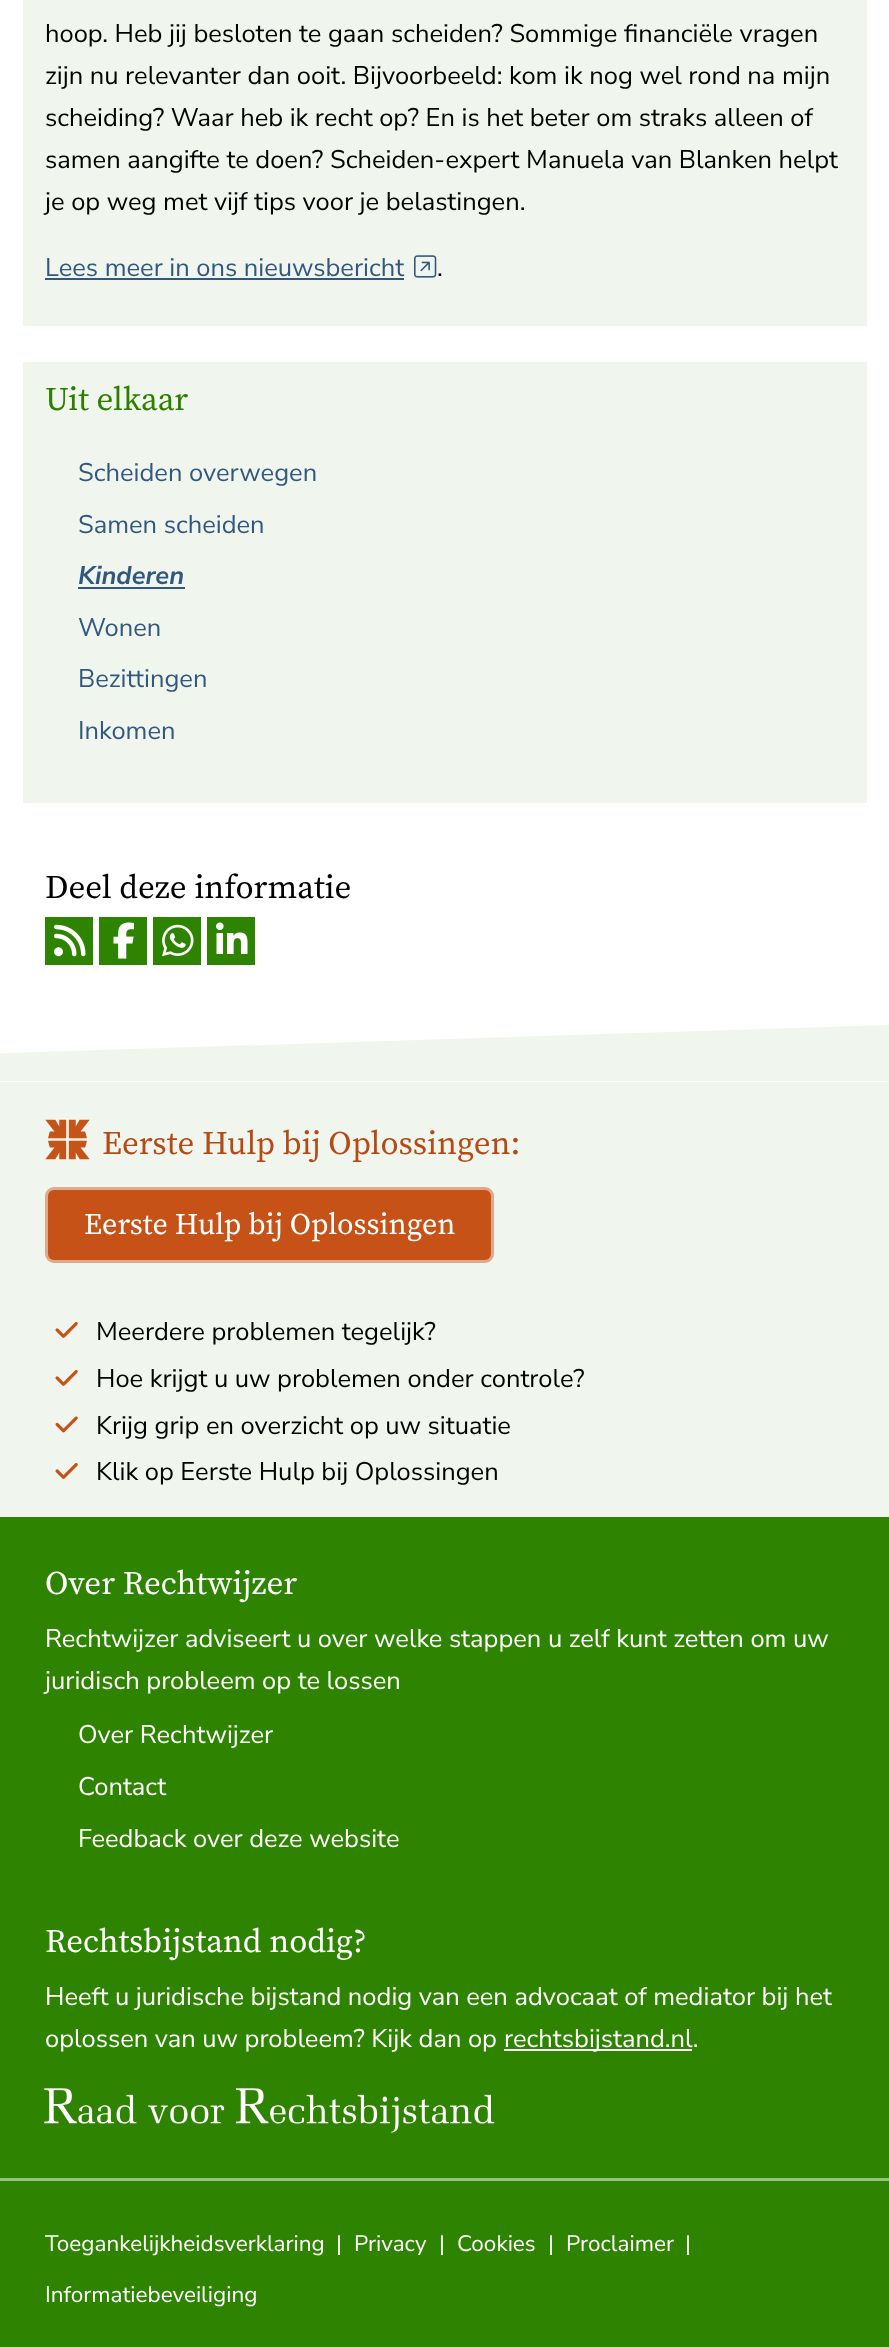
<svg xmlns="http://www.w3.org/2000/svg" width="889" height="2347">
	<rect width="100%" height="100%" fill="#FFFFFF" />
	<rect x="23" y="0" width="844" height="326" fill="#F0F6ED" />
	<g font-family="Nunito Sans" font-size="25.5" fill="#000000">
		<text x="45" y="42">hoop. Heb jij besloten te gaan scheiden? Sommige financiële vragen</text>
		<text x="45" y="84">zijn nu relevanter dan ooit. Bijvoorbeeld: kom ik nog wel rond na mijn</text>
		<text x="45" y="126">scheiding? Waar heb ik recht op? En is het beter om straks alleen of</text>
		<text x="45" y="168">samen aangifte te doen? Scheiden-expert Manuela van Blanken helpt</text>
		<text x="45" y="210">je op weg met vijf tips voor je belastingen.</text>
	</g>
	<text x="45" y="276" font-family="Nunito Sans" font-size="25.5" fill="#33587F">Lees meer in ons nieuwsbericht</text>
	<rect x="45" y="278" width="359" height="2" fill="#33587F" />
	<image x="414" y="255" width="23" height="23" href="assets/img1.png" />
	<text x="437" y="276" font-family="Nunito Sans" font-size="25.5" fill="#000000">.</text>
	<rect x="23" y="362" width="844" height="441" fill="#F0F6ED" />
	<text x="45" y="410" font-family="Source Serif Pro" font-size="33" fill="#2D7F00">Uit elkaar</text>
	<image x="45" y="478" width="1" height="3" href="assets/img2.png" />
	<text x="78" y="481" font-family="Nunito Sans" font-size="25.5" fill="#33587F">Scheiden overwegen</text>
	<image x="45" y="529" width="1" height="3" href="assets/img2.png" />
	<text x="78" y="533" font-family="Nunito Sans" font-size="25.5" fill="#33587F">Samen scheiden</text>
	<image x="45" y="580" width="1" height="3" href="assets/img2.png" />
	<text x="78" y="584" font-family="Nunito Sans" font-size="25.5" font-weight="700" font-style="italic" fill="#33587F">Kinderen</text>
	<rect x="78" y="587" width="107" height="2" fill="#33587F" />
	<g font-family="Nunito Sans" font-size="25.5" fill="#33587F">
		<text x="78" y="636">Wonen</text>
		<text x="78" y="687">Bezittingen</text>
	</g>
	<image x="45" y="736" width="1" height="3" href="assets/img2.png" />
	<text x="78" y="739" font-family="Nunito Sans" font-size="25.5" fill="#33587F">Inkomen</text>
	<text x="45" y="898" font-family="Source Serif Pro" font-size="33" fill="#000000">Deel deze informatie</text>
	<rect x="45" y="917" width="48" height="48" fill="#2E8300" />
	<image x="54" y="924" width="32" height="33" href="assets/img3.png" />
	<rect x="99" y="917" width="48" height="48" fill="#2E8300" />
	<image x="113" y="922" width="21" height="37" href="assets/img4.png" />
	<rect x="153" y="917" width="48" height="48" fill="#2E8300" />
	<image x="162" y="924" width="32" height="33" href="assets/img5.png" />
	<rect x="207" y="917" width="48" height="48" fill="#2E8300" />
	<image x="216" y="922" width="32" height="32" href="assets/img6.png" />
	<path d="M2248 1081H-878L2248 982Z" fill="#F0F6ED" />
	<rect x="0" y="1082" width="889" height="435" fill="#F0F6ED" />
	<image x="45" y="1119" width="45" height="41" href="assets/img7.png" />
	<text x="102" y="1154" font-family="Source Serif Pro" font-size="33" fill="#B44B16">Eerste Hulp bij Oplossingen:</text>
	<rect x="46.5" y="1188.5" width="446" height="73" rx="7.5" fill="#C65218" stroke="#E2A88B" stroke-width="3" />
	<text x="84" y="1234" font-family="Source Serif Pro" font-size="30" fill="#FFFFFF">Eerste Hulp bij Oplossingen</text>
	<image x="55" y="1322" width="23" height="16" href="assets/img8.png" />
	<text x="96" y="1340" font-family="Nunito Sans" font-size="25.5" fill="#000000">Meerdere problemen tegelijk?</text>
	<image x="55" y="1370" width="23" height="16" href="assets/img8.png" />
	<text x="96" y="1387" font-family="Nunito Sans" font-size="25.5" fill="#000000">Hoe krijgt u uw problemen onder controle?</text>
	<image x="55" y="1416" width="23" height="17" href="assets/img9.png" />
	<text x="96" y="1434" font-family="Nunito Sans" font-size="25.5" fill="#000000">Krijg grip en overzicht op uw situatie</text>
	<image x="55" y="1463" width="23" height="16" href="assets/img8.png" />
	<text x="96" y="1480" font-family="Nunito Sans" font-size="25.5" fill="#000000">Klik op Eerste Hulp bij Oplossingen</text>
	<rect x="0" y="1517" width="889" height="661" fill="#2E8300" />
	<rect x="0" y="2178" width="889" height="3" fill="#96C17F" />
	<text x="45" y="1594" font-family="Source Serif Pro" font-size="33" fill="#FFFFFF">Over Rechtwijzer</text>
	<g font-family="Nunito Sans" font-size="25.5" fill="#FFFFFF">
		<text x="45" y="1647">Rechtwijzer adviseert u over welke stappen u zelf kunt zetten om uw</text>
		<text x="45" y="1689">juridisch probleem op te lossen</text>
	</g>
	<rect x="45" y="1740" width="1" height="1" fill="#328505" />
	<text x="78" y="1743" font-family="Nunito Sans" font-size="25.5" fill="#FFFFFF">Over Rechtwijzer</text>
	<rect x="45" y="1792" width="1" height="1" fill="#2C7E00" />
	<text x="78" y="1795" font-family="Nunito Sans" font-size="25.5" fill="#FFFFFF">Contact</text>
	<rect x="45" y="1843" width="1" height="1" fill="#2C7E00" />
	<text x="78" y="1847" font-family="Nunito Sans" font-size="25.5" fill="#FFFFFF">Feedback over deze website</text>
	<text x="45" y="1952" font-family="Source Serif Pro" font-size="33" fill="#FFFFFF">Rechtsbijstand nodig?</text>
	<g font-family="Nunito Sans" font-size="25.5" fill="#FFFFFF">
		<text x="45" y="2005">Heeft u juridische bijstand nodig van een advocaat of mediator bij het</text>
		<text x="45" y="2047">oplossen van uw probleem? Kijk dan op</text>
	</g>
	<rect x="504" y="2049" width="188" height="2" fill="#FFFFFF" />
	<text x="504" y="2047" font-family="Nunito Sans" font-size="25.5" fill="#FFFFFF">rechtsbijstand.nl.</text>
	<image x="44" y="2088" width="451" height="45" href="assets/img10.png" />
	<rect x="0" y="2181" width="889" height="166" fill="#2E8300" />
	<g font-family="Nunito Sans" font-size="22.5" fill="#FFFFFF">
		<text x="45" y="2251">Toegankelijkheidsverklaring</text>
		<text x="336" y="2251">|</text>
		<text x="354" y="2251">Privacy</text>
		<text x="439" y="2251">|</text>
		<text x="457" y="2251">Cookies</text>
		<text x="548" y="2251">|</text>
		<text x="566" y="2251">Proclaimer</text>
		<text x="685" y="2251">|</text>
		<text x="45" y="2302">Informatiebeveiliging</text>
	</g>
</svg>
